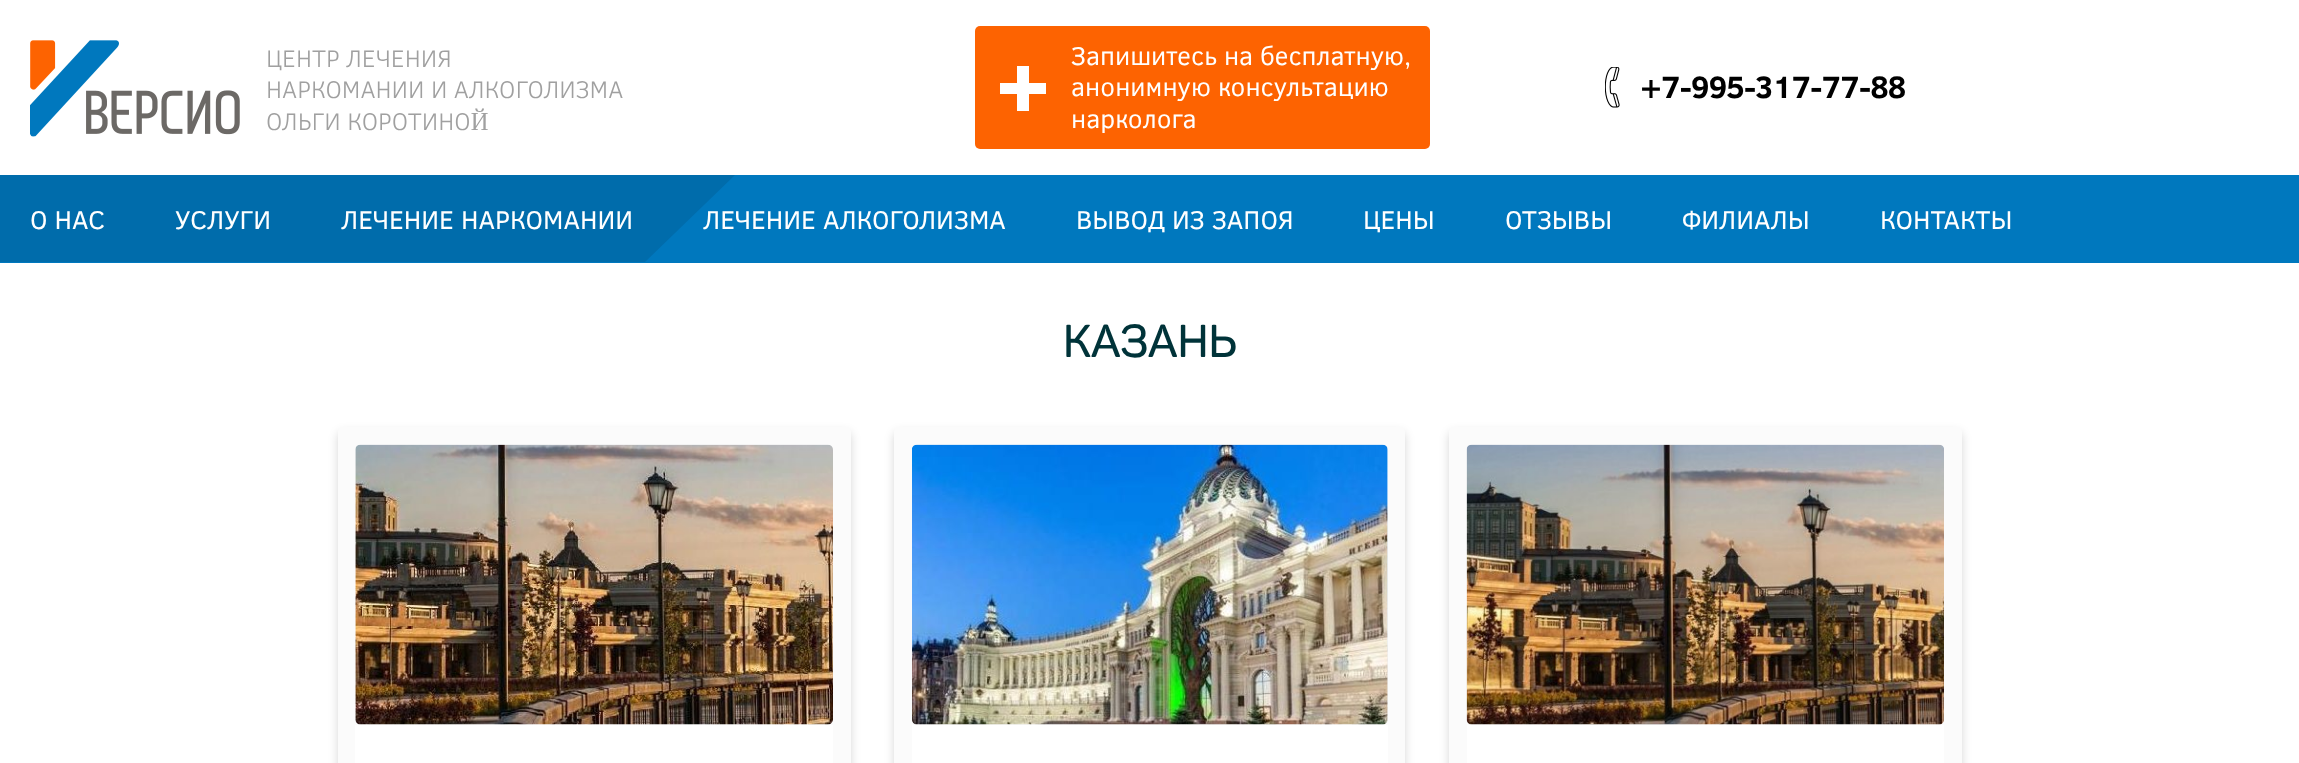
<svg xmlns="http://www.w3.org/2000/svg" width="2299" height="763">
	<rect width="100%" height="100%" fill="#FFFFFF" />
	<image x="30" y="40" width="210" height="97" href="assets/img1.png" />
	<g font-family="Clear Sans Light" font-size="24.5" font-weight="300" fill="#A0A0A0">
		<text x="266" y="67">ЦЕНТР ЛЕЧЕНИЯ</text>
		<text x="266" y="98">НАРКОМАНИИ И АЛКОГОЛИЗМА</text>
		<text x="266" y="130">ОЛЬГИ КОРОТИНОЙ</text>
	</g>
	<rect x="975" y="26" width="455" height="123" rx="5" fill="#FD6301" />
	<text x="1071" y="65" font-family="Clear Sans" font-size="26.25" fill="#FFFFFF">Запишитесь на бесплатную,</text>
	<path d="M1000 83H1017V66H1029V83H1046V94H1029V111H1017V94H1000Z" fill="#FFFFFF" />
	<g font-family="Clear Sans" font-size="26.25" fill="#FFFFFF">
		<text x="1071" y="96">анонимную консультацию</text>
		<text x="1071" y="128">нарколога</text>
	</g>
	<image x="1605" y="67" width="15" height="41" href="assets/img2.png" />
	<text x="1640" y="98" font-family="Clear Sans" font-size="31.5" font-weight="700" letter-spacing="-0.9" fill="#000000">+7-995-317-77-88</text>
	<rect x="0" y="175" width="2299" height="88" fill="#0078BE" />
	<path d="M-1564 175H735L645 262H-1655Z" fill="#006CAB" />
	<g font-family="Clear Sans" font-size="26.25" fill="#FFFFFF">
		<text x="30" y="229">О НАС</text>
		<text x="175" y="229">УСЛУГИ</text>
		<text x="341" y="229">ЛЕЧЕНИЕ НАРКОМАНИИ</text>
		<text x="703" y="229">ЛЕЧЕНИЕ АЛКОГОЛИЗМА</text>
		<text x="1076" y="229">ВЫВОД ИЗ ЗАПОЯ</text>
		<text x="1363" y="229">ЦЕНЫ</text>
		<text x="1505" y="229">ОТЗЫВЫ</text>
		<text x="1682" y="229">ФИЛИАЛЫ</text>
		<text x="1880" y="229">КОНТАКТЫ</text>
	</g>
	<text x="1063" y="357" font-family="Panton" font-size="45.5" font-weight="600" fill="#003339">КАЗАНЬ</text>
	<rect x="338" y="432" width="513" height="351" rx="5" fill="#000000" fill-opacity="0.16" filter="blur(5px)" />
	<rect x="338" y="427" width="513" height="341" rx="5" fill="#FBFBFB" />
	<image x="355" y="444" width="478" height="281" href="assets/img3.png" />
	<rect x="355" y="725" width="478" height="38" fill="#FFFFFF" />
	<rect x="894" y="432" width="511" height="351" rx="5" fill="#000000" fill-opacity="0.16" filter="blur(5px)" />
	<rect x="894" y="427" width="511" height="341" rx="5" fill="#FBFBFB" />
	<image x="912" y="444" width="476" height="281" href="assets/img4.png" />
	<rect x="912" y="725" width="476" height="38" fill="#FFFFFF" />
	<rect x="1449" y="432" width="513" height="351" rx="5" fill="#000000" fill-opacity="0.16" filter="blur(5px)" />
	<rect x="1449" y="427" width="513" height="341" rx="5" fill="#FBFBFB" />
	<image x="1466" y="444" width="478" height="281" href="assets/img5.png" />
	<rect x="1467" y="725" width="477" height="38" fill="#FFFFFF" />
</svg>
